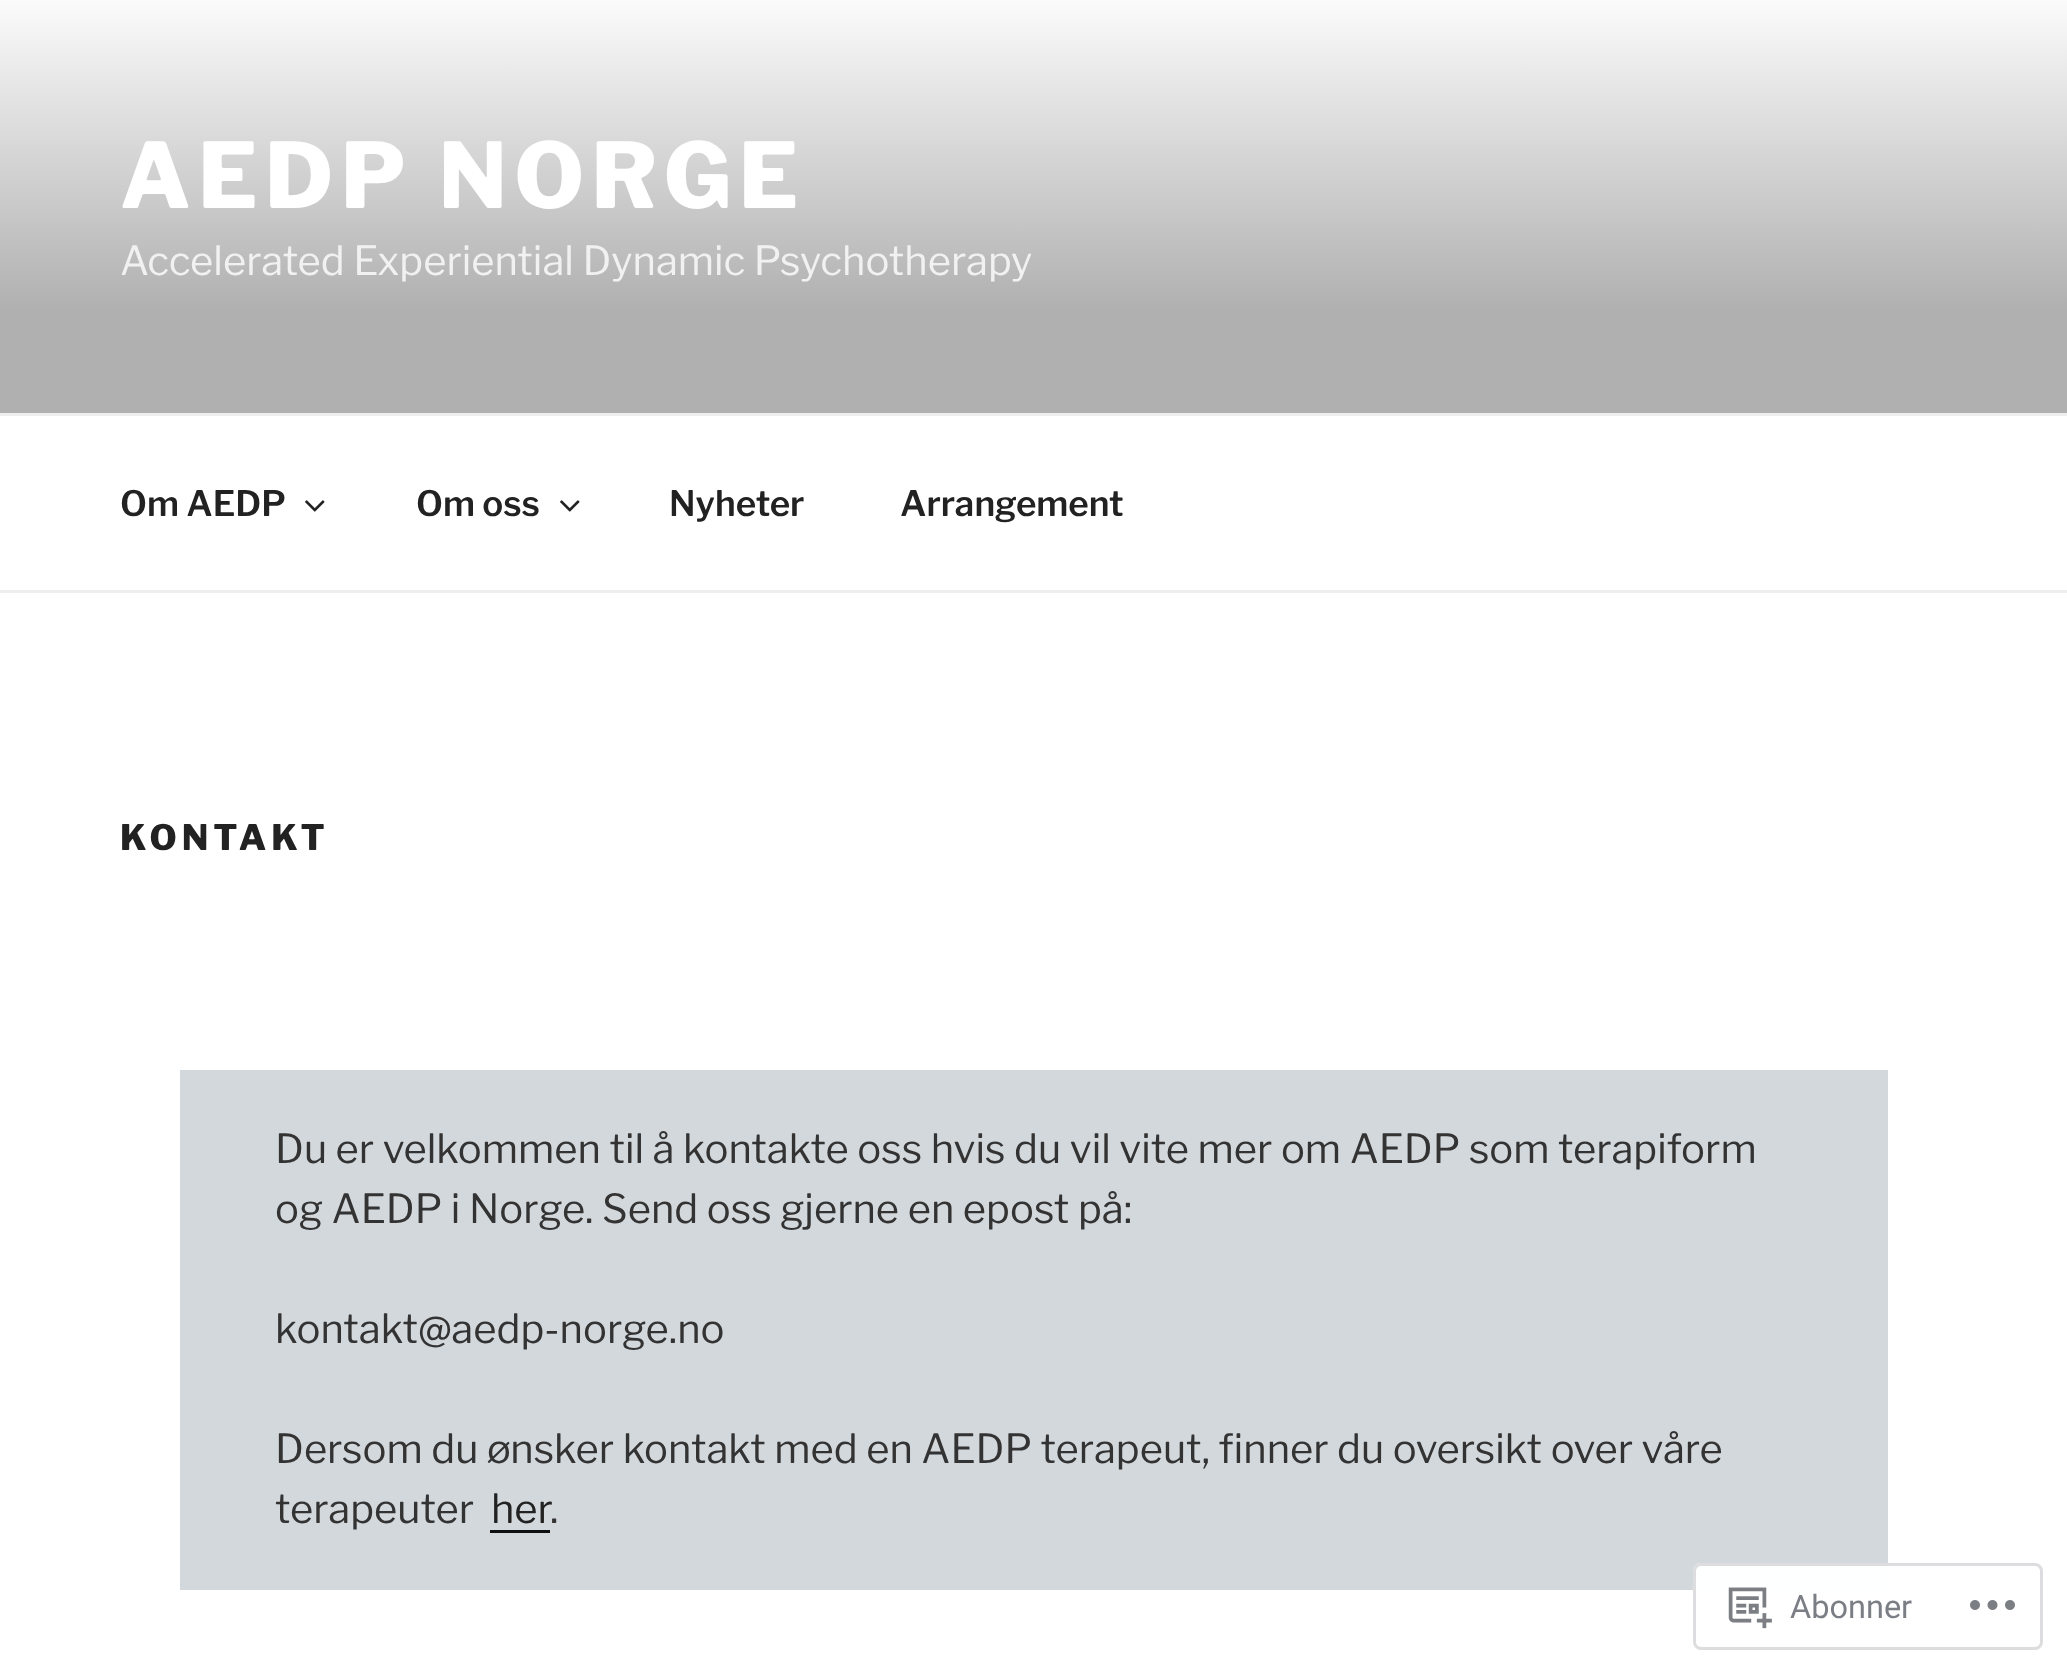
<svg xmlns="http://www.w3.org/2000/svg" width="2067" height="1674">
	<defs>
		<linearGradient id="g1" gradientUnits="userSpaceOnUse" x1="1034" y1="0" x2="1034" y2="413"><stop offset="0" stop-color="#FBFBFB" /><stop offset="0.75" stop-color="#B0B0B0" /><stop offset="1" stop-color="#B0B0B0" /></linearGradient>
	</defs>
	<rect width="100%" height="100%" fill="#FFFFFF" />
	<rect x="0" y="0" width="2067" height="413" fill="url(#g1)" />
	<text x="120" y="208" font-family="Libre Franklin" font-size="90" font-weight="100" letter-spacing="7.25" fill="#FFFFFF">AEDP NORGE</text>
	<text x="120" y="275" font-family="'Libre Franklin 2'" font-size="40" font-weight="100" fill="#F1F1F1">Accelerated Experiential Dynamic Psychotherapy</text>
	<rect x="0" y="413" width="2067" height="3" fill="#EEEEEE" />
	<rect x="0" y="590" width="2067" height="3" fill="#EEEEEE" />
	<text x="120" y="516" font-family="'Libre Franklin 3'" font-size="35" font-weight="100" fill="#222222">Om AEDP</text>
	<image x="305" y="500" width="20" height="12" href="assets/img1.png" />
	<text x="416" y="516" font-family="'Libre Franklin 3'" font-size="35" font-weight="100" fill="#222222">Om oss</text>
	<image x="560" y="500" width="20" height="12" href="assets/img1.png" />
	<g font-family="'Libre Franklin 3'" font-size="35" font-weight="100" fill="#222222">
		<text x="669" y="516">Nyheter</text>
		<text x="900" y="516">Arrangement</text>
	</g>
	<text x="120" y="850" font-family="Libre Franklin" font-size="35" font-weight="100" letter-spacing="5" fill="#222222">KONTAKT</text>
	<rect x="180" y="1070" width="1708" height="520" fill="#D3D8DC" />
	<g font-family="'Libre Franklin 2'" font-size="40" font-weight="100" fill="#333333">
		<text x="275" y="1163">Du er velkommen til å kontakte oss hvis du vil vite mer om AEDP som terapiform</text>
		<text x="275" y="1223">og AEDP i Norge. Send oss gjerne en epost på:</text>
		<text x="275" y="1343">kontakt@aedp-norge.no</text>
		<text x="275" y="1463">Dersom du ønsker kontakt med en AEDP terapeut, finner du oversikt over våre</text>
		<text x="275" y="1523">terapeuter</text>
	</g>
	<text x="491" y="1523" font-family="'Libre Franklin 2'" font-size="40" font-weight="100" fill="#222222">her</text>
	<rect x="490" y="1530" width="60" height="3" fill="#0F0F0F" />
	<text x="550" y="1523" font-family="'Libre Franklin 2'" font-size="40" font-weight="100" fill="#333333">.</text>
	<rect x="1693" y="1563" width="350" height="87" rx="8" fill="#FFFFFF" fill-opacity="0.98" />
	<rect x="1694.5" y="1564.5" width="347" height="84" rx="6.5" fill="none" stroke="#DCDCDE" stroke-opacity="0.98" stroke-width="3" />
	<image x="1728" y="1587" width="44" height="42" href="assets/img2.png" />
	<text x="1790" y="1618" font-family="Roboto" font-size="32.5" fill="#7B7F85">Abonner</text>
	<image x="1970" y="1600" width="45" height="10" href="assets/img3.png" />
</svg>
